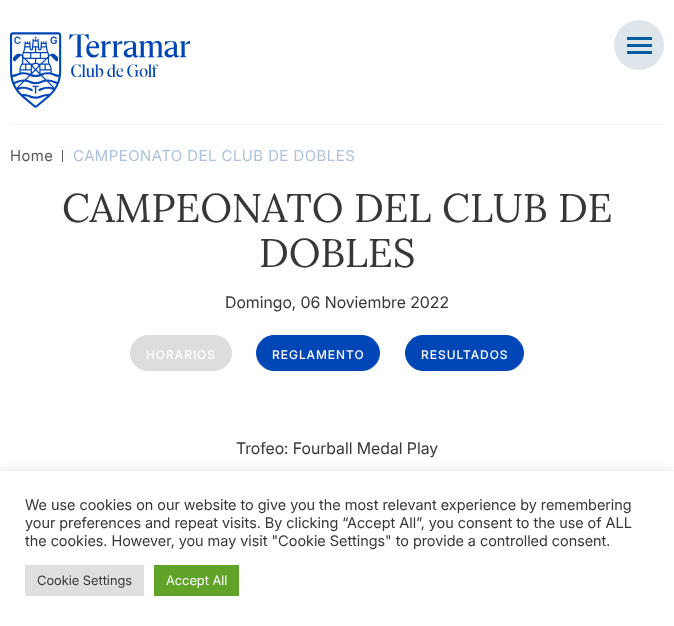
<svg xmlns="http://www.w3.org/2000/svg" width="674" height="626">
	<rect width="100%" height="100%" fill="#FFFFFF" />
	<rect x="10" y="124" width="654" height="1" fill="#F2F2F2" />
	<image x="10" y="32" width="180" height="76" href="assets/img1.png" />
	<circle cx="639" cy="45" r="25" fill="#DEE5EB" />
	<rect x="627" y="37" width="25" height="3" fill="#005CA1" />
	<rect x="627" y="44" width="25" height="3" fill="#005CA1" />
	<rect x="627" y="51" width="25" height="3" fill="#005CA1" />
	<text x="10" y="161" font-family="Inter" font-size="15" letter-spacing="0.5" fill="#5A5A5A">Home</text>
	<rect x="62" y="150" width="1" height="12" fill="#5A5A5A" />
	<text x="73" y="161" font-family="Inter" font-size="15" letter-spacing="0.5" fill="#ACC1DC">CAMPEONATO DEL CLUB DE DOBLES</text>
	<g font-family="Lora" font-size="40" fill="#373737">
		<text x="62" y="222">CAMPEONATO DEL CLUB DE</text>
		<text x="259" y="267">DOBLES</text>
	</g>
	<text x="225" y="308" font-family="Inter" font-size="16" fill="#373737">Domingo, 06 Noviembre 2022</text>
	<rect x="130.5" y="335.5" width="101" height="35" rx="17.5" fill="#DDDDDD" stroke="#DDDDDD" />
	<text x="146" y="359" font-family="Inter" font-size="12" font-weight="500" letter-spacing="1" fill="#FFFFFF">HORARIOS</text>
	<rect x="256.5" y="335.5" width="123" height="35" rx="17.5" fill="#0046B7" stroke="#0046B7" />
	<text x="272" y="359" font-family="Inter" font-size="12" font-weight="500" letter-spacing="1" fill="#FFFFFF">REGLAMENTO</text>
	<rect x="405.5" y="335.5" width="118" height="35" rx="17.5" fill="#0046B7" stroke="#0046B7" />
	<text x="421" y="359" font-family="Inter" font-size="12" font-weight="500" letter-spacing="1" fill="#FFFFFF">RESULTADOS</text>
	<text x="236" y="454" font-family="Inter" font-size="16" fill="#373737">Trofeo: Fourball Medal Play</text>
	<rect x="0" y="470" width="674" height="155" fill="#ACABAB" fill-opacity="0.3" filter="blur(5px)" />
	<rect x="0" y="471" width="674" height="155" fill="#FFFFFF" />
	<g font-family="Inter" font-size="14.65" fill="#373737">
		<text x="25" y="510">We use cookies on our website to give you the most relevant experience by remembering</text>
		<text x="25" y="528">your preferences and repeat visits. By clicking “Accept All”, you consent to the use of ALL</text>
		<text x="25" y="546">the cookies. However, you may visit "Cookie Settings" to provide a controlled consent.</text>
	</g>
	<rect x="25" y="565" width="119" height="31" fill="#DEDFE0" />
	<text x="37" y="585" font-family="Inter" font-size="13" fill="#373737">Cookie Settings</text>
	<rect x="154" y="565" width="85" height="31" fill="#61A229" />
	<text x="166" y="585" font-family="Inter" font-size="13" fill="#FFFFFF">Accept All</text>
</svg>
